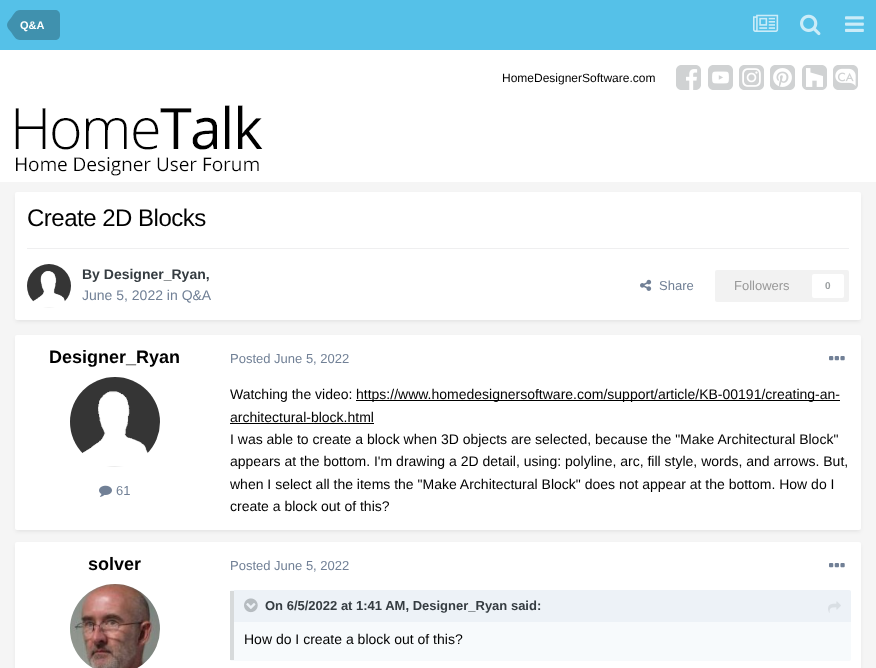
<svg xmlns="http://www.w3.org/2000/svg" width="876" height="668">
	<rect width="100%" height="100%" fill="#F5F5F5" />
	<rect x="0" y="0" width="876" height="50" fill="#55C1E8" />
	<path d="M20 10H55C58 10 60 12 60 15V35C60 38 58 40 55 40H20Z" fill="#4091AE" />
	<path d="M20 25V40C15.5 40 13.5 35.5 11 32C9.5 30 7 28 7 25ZM20 25H7C7 22 9.5 20 11 18C13.5 14.5 15.5 10 20 10Z" fill="#4091AE" />
	<text x="20" y="29" font-family="Liberation Sans" font-size="11" font-weight="700" fill="#FFFFFF">Q&amp;A</text>
	<image x="753" y="14" width="26" height="18" href="assets/img1.png" />
	<image x="800" y="14" width="21" height="22" href="assets/img2.png" />
	<image x="845" y="16" width="19" height="16" href="assets/img3.png" />
	<rect x="0" y="50" width="876" height="132" fill="#FFFFFF" />
	<text x="502" y="82" font-family="Liberation Sans" font-size="12" fill="#000000">HomeDesignerSoftware.com</text>
	<image x="676" y="65" width="25" height="25" href="assets/img4.png" />
	<image x="708" y="65" width="25" height="25" href="assets/img5.png" />
	<image x="739" y="65" width="25" height="25" href="assets/img6.png" />
	<image x="770" y="65" width="25" height="25" href="assets/img7.png" />
	<image x="802" y="65" width="25" height="25" href="assets/img8.png" />
	<image x="833" y="65" width="25" height="25" href="assets/img9.png" />
	<image x="15" y="105" width="248" height="71" href="assets/img10.png" />
	<rect x="16" y="195" width="844" height="126" rx="1" fill="#222222" fill-opacity="0.1" filter="blur(2px)" />
	<rect x="15" y="192" width="846" height="128" rx="2" fill="#FFFFFF" />
	<text x="27" y="226" font-family="Liberation Sans" font-size="24" letter-spacing="-0.5" fill="#000000">Create 2D Blocks</text>
	<rect x="27" y="248" width="822" height="1" fill="#EFEFF0" />
	<image x="27" y="264" width="44" height="44" href="assets/img11.png" />
	<text x="82" y="279" font-family="Liberation Sans" font-size="14" font-weight="700" fill="#353C41">By Designer_Ryan,</text>
	<text x="82" y="300" font-family="Liberation Sans" font-size="14" fill="#718096">June 5, 2022 in Q&amp;A</text>
	<image x="640" y="279" width="12" height="12" href="assets/img12.png" />
	<text x="659" y="290" font-family="Liberation Sans" font-size="13" fill="#718096">Share</text>
	<rect x="715" y="270" width="134" height="32" rx="2" fill="#F2F2F2" />
	<text x="734" y="290" font-family="Liberation Sans" font-size="13" fill="#999999">Followers</text>
	<rect x="812" y="274" width="32" height="24" rx="2" fill="#FFFFFF" />
	<text x="825" y="289" font-family="Liberation Sans" font-size="10" font-weight="700" fill="#9A9EA0">0</text>
	<rect x="16" y="338" width="844" height="193" rx="1" fill="#222222" fill-opacity="0.1" filter="blur(2px)" />
	<rect x="15" y="335" width="846" height="195" rx="2" fill="#FFFFFF" />
	<text x="49" y="363" font-family="Liberation Sans" font-size="18" font-weight="700" fill="#000000">Designer_Ryan</text>
	<image x="70" y="377" width="90" height="90" href="assets/img13.png" />
	<image x="99" y="485" width="13" height="12" href="assets/img14.png" />
	<g font-family="Liberation Sans" font-size="13" fill="#718096">
		<text x="116" y="495">61</text>
		<text x="230" y="363">Posted June 5, 2022</text>
	</g>
	<image x="829" y="356" width="16" height="5" href="assets/img15.png" />
	<text x="230" y="399" font-family="Liberation Sans" font-size="14" fill="#000000">Watching the video:</text>
	<rect x="356" y="400" width="484" height="1" fill="#000000" />
	<g font-family="Liberation Sans" font-size="14" fill="#000000">
		<text x="356" y="399">https://www.homedesignersoftware.com/support/article/KB-00191/creating-an-</text>
		<text x="230" y="422">architectural-block.html</text>
	</g>
	<rect x="230" y="423" width="144" height="1" fill="#000000" />
	<g font-family="Liberation Sans" font-size="14" fill="#000000">
		<text x="230" y="444">I was able to create a block when 3D objects are selected, because the "Make Architectural Block"</text>
		<text x="230" y="466">appears at the bottom. I'm drawing a 2D detail, using: polyline, arc, fill style, words, and arrows. But,</text>
		<text x="230" y="489">when I select all the items the "Make Architectural Block" does not appear at the bottom. How do I</text>
		<text x="230" y="511">create a block out of this?</text>
	</g>
	<rect x="16" y="545" width="844" height="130" rx="1" fill="#222222" fill-opacity="0.1" filter="blur(2px)" />
	<rect x="15" y="542" width="846" height="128" rx="2" fill="#FFFFFF" />
	<text x="88" y="570" font-family="Liberation Sans" font-size="18" font-weight="700" fill="#000000">solver</text>
	<image x="70" y="584" width="90" height="84" href="assets/img16.png" />
	<text x="230" y="570" font-family="Liberation Sans" font-size="13" fill="#718096">Posted June 5, 2022</text>
	<image x="829" y="563" width="16" height="5" href="assets/img15.png" />
	<rect x="230" y="590" width="621" height="71" rx="2" fill="#F7FAFC" />
	<rect x="230" y="591" width="4" height="69" fill="#D7DADB" />
	<path d="M234 590H849C850 590 851 591 851 592V622H234Z" fill="#EDF2F7" />
	<image x="244" y="598" width="14" height="15" href="assets/img17.png" />
	<text x="265" y="610" font-family="Liberation Sans" font-size="13" font-weight="700" fill="#353C41">On 6/5/2022 at 1:41 AM, Designer_Ryan said:</text>
	<image x="828" y="601" width="13" height="12" href="assets/img18.png" />
	<text x="244" y="644" font-family="Liberation Sans" font-size="14" fill="#000000">How do I create a block out of this?</text>
</svg>
